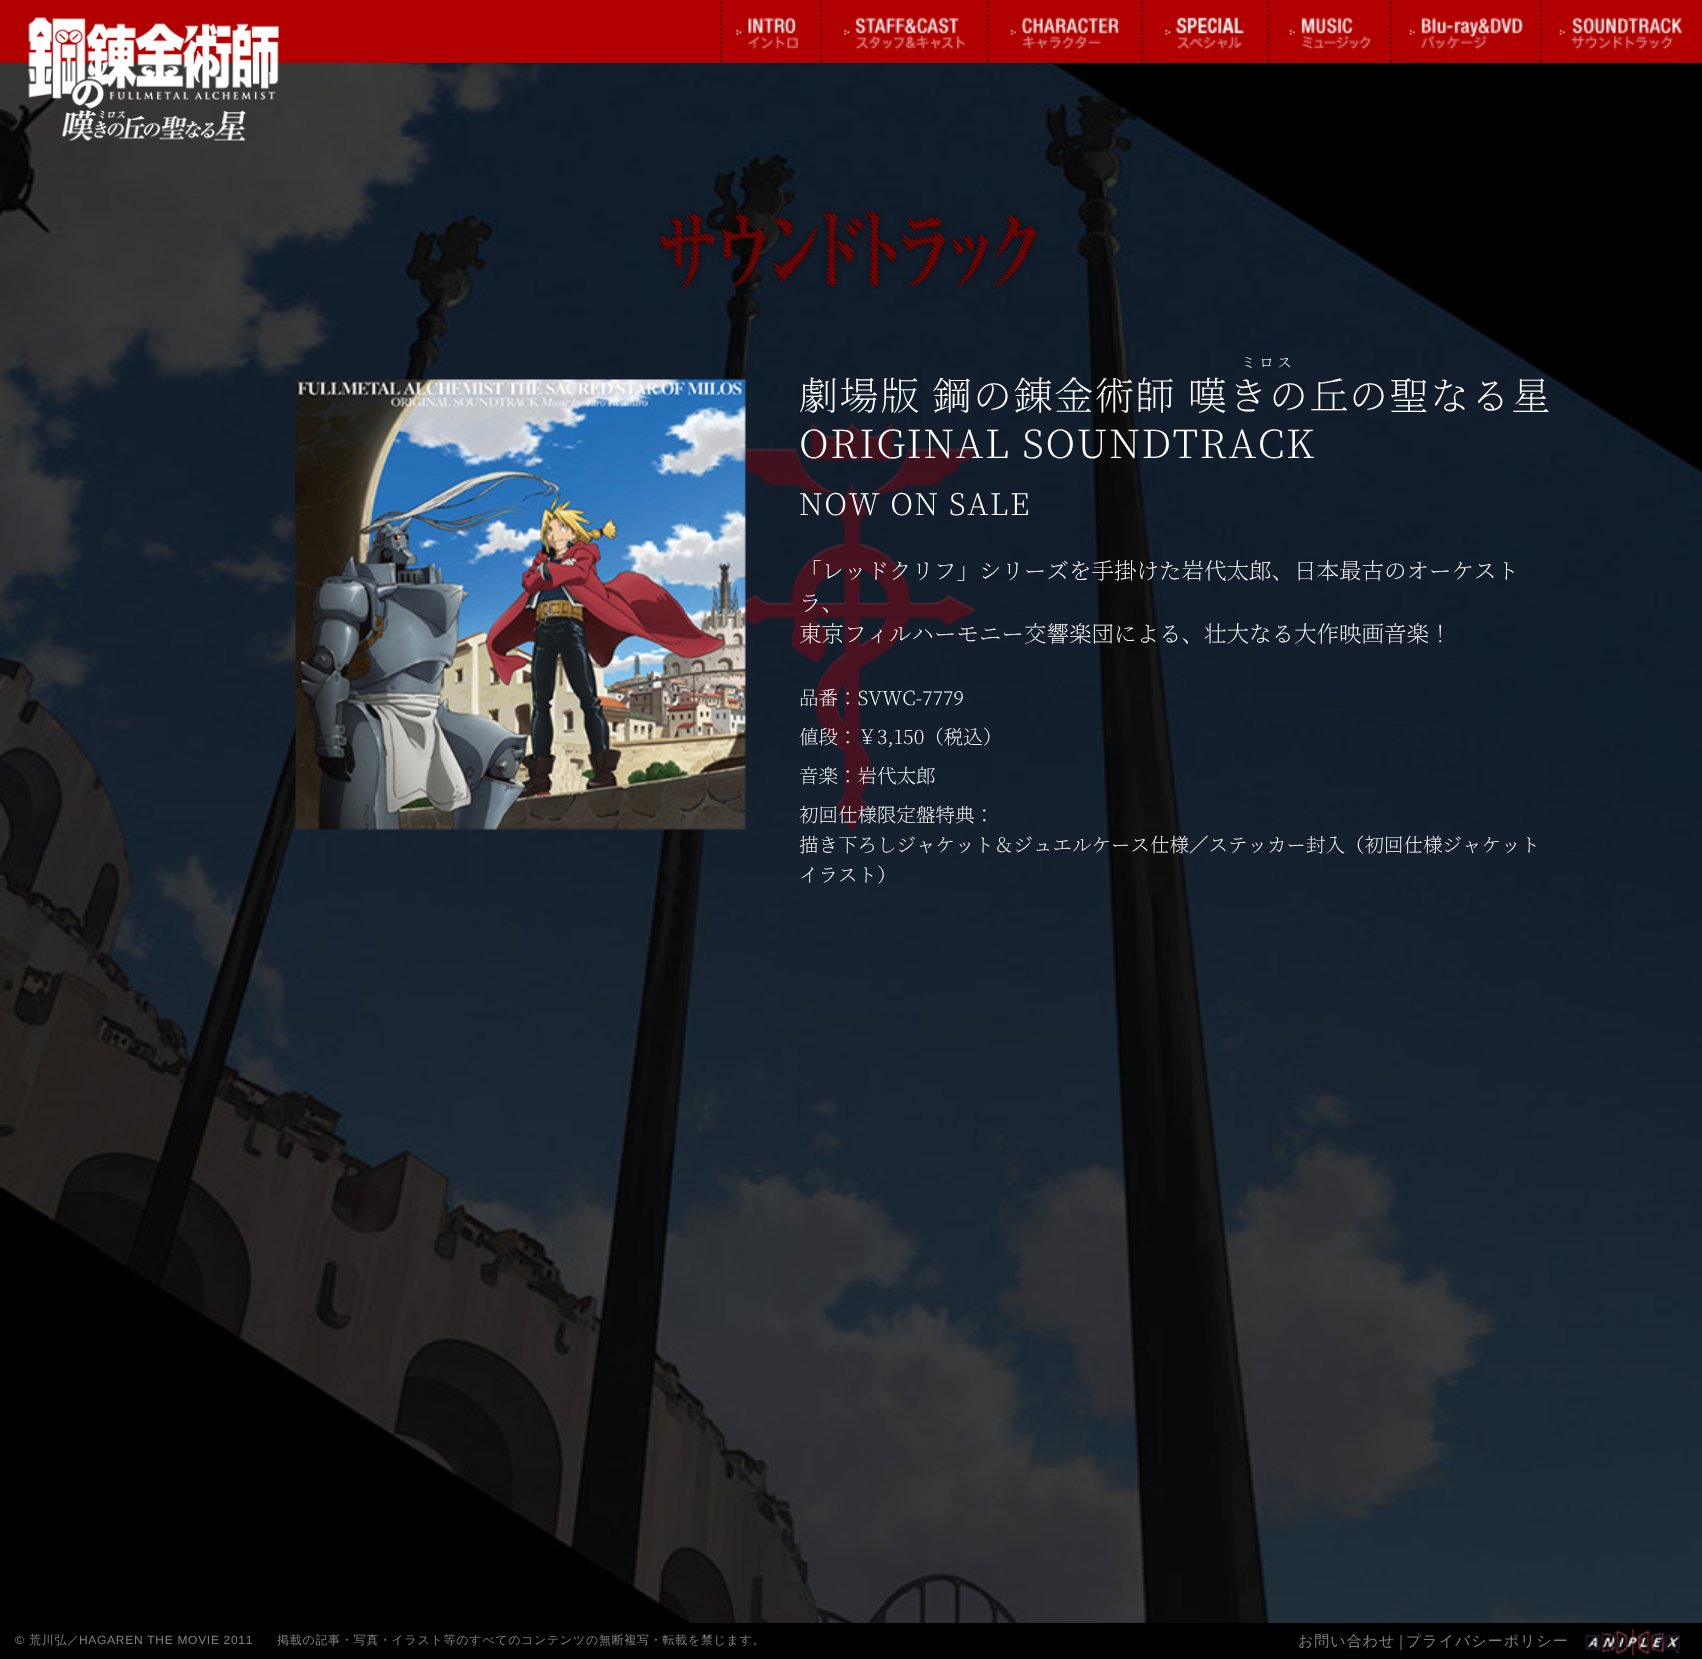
<svg xmlns="http://www.w3.org/2000/svg" width="1702" height="1659">
	<style>*{font-kerning:none!important;font-variant-ligatures:none!important}</style>
	<rect width="100%" height="100%" fill="#FFFFFF" />
	<rect x="0" y="0" width="1702" height="63" fill="#B20000" />
	<image x="720" y="1" width="2" height="61" href="assets/img1.png" />
	<image x="736" y="17" width="63" height="33" href="assets/img2.png" />
	<image x="820" y="1" width="2" height="61" href="assets/img3.png" />
	<image x="844" y="17" width="122" height="33" href="assets/img4.png" />
	<image x="987" y="1" width="2" height="61" href="assets/img1.png" />
	<image x="1010" y="17" width="110" height="33" href="assets/img5.png" />
	<image x="1141" y="1" width="2" height="61" href="assets/img3.png" />
	<image x="1165" y="17" width="79" height="33" href="assets/img6.png" />
	<image x="1267" y="1" width="2" height="61" href="assets/img3.png" />
	<image x="1289" y="17" width="83" height="33" href="assets/img7.png" />
	<image x="1390" y="1" width="2" height="61" href="assets/img3.png" />
	<image x="1409" y="17" width="114" height="33" href="assets/img8.png" />
	<image x="1540" y="1" width="2" height="61" href="assets/img3.png" />
	<image x="1559" y="17" width="124" height="33" href="assets/img9.png" />
	<image x="0" y="63" width="1702" height="1560" href="assets/img11.png" />
	<image x="28" y="17" width="251" height="124" href="assets/img10.png" />
	<image x="745" y="421" width="232" height="412" href="assets/img12.png" />
	<image x="659" y="211" width="380" height="79" href="assets/img13.png" />
	<image x="295" y="379" width="451" height="451" href="assets/img14.png" />
	<text x="1241" y="368" font-family="Noto Serif JP" font-size="15" font-weight="200" letter-spacing="3" fill="#FFFFFF">ミロス</text>
	<g font-family="Noto Serif JP" font-size="39" font-weight="200" letter-spacing="1.6" fill="#FFFFFF">
		<text x="799" y="410">劇場版 鋼の錬金術師 嘆きの丘</text>
		<text x="1349" y="410">の聖なる星</text>
		<text x="799" y="458">ORIGINAL SOUNDTRACK</text>
	</g>
	<text x="799" y="515" font-family="Noto Serif JP" font-size="30" font-weight="200" letter-spacing="1.5" fill="#FFFFFF">NOW ON SALE</text>
	<g font-family="Noto Serif JP" font-size="22.5" font-weight="200" fill="#FFFFFF">
		<text x="799" y="579">「レッドクリフ」シリーズを手掛けた岩代太郎、日本最古のオーケスト</text>
		<text x="799" y="611">ラ、</text>
		<text x="799" y="642">東京フィルハーモニー交響楽団による、壮大なる大作映画音楽！</text>
	</g>
	<g font-family="Noto Serif JP" font-size="19.5" font-weight="200" fill="#FFFFFF">
		<text x="799" y="705">品番：SVWC-7779</text>
		<text x="799" y="744">値段：￥3,150（税込）</text>
		<text x="799" y="783">音楽：岩代太郎</text>
		<text x="799" y="822">初回仕様限定盤特典：</text>
		<text x="799" y="852">描き下ろしジャケット＆ジュエルケース仕様／ステッカー封入（初回仕様ジャケ</text>
		<text x="1501" y="852">ット</text>
		<text x="799" y="882">イラスト）</text>
	</g>
	<rect x="0" y="1623" width="1702" height="36" fill="#000000" />
	<text x="15" y="1644" font-family="Liberation Sans" font-size="12" letter-spacing="0.7" fill="#808080">©</text>
	<text x="29" y="1644" font-family="WenQuanYi Zen Hei" font-size="12" font-weight="500" letter-spacing="0.7" fill="#808080">荒川弘／</text>
	<text x="79" y="1644" font-family="Liberation Sans" font-size="12" letter-spacing="0.7" fill="#808080">HAGAREN THE MOVIE 2011</text>
	<text x="277" y="1644" font-family="WenQuanYi Zen Hei" font-size="12" font-weight="500" letter-spacing="0.7" fill="#808080">掲載の記事・写真・イラスト等のすべてのコンテンツの無断複写・転載を禁じます。</text>
	<text x="1298" y="1646" font-family="WenQuanYi Zen Hei" font-size="15" font-weight="500" letter-spacing="1" fill="#808080">お問い合わせ</text>
	<rect x="1400" y="1635" width="2" height="15" fill="#404040" />
	<text x="1406" y="1646" font-family="WenQuanYi Zen Hei" font-size="15" font-weight="500" letter-spacing="1" fill="#808080">プライバシーポリシー</text>
	<image x="1585" y="1628" width="96" height="29" href="assets/img15.png" />
</svg>
